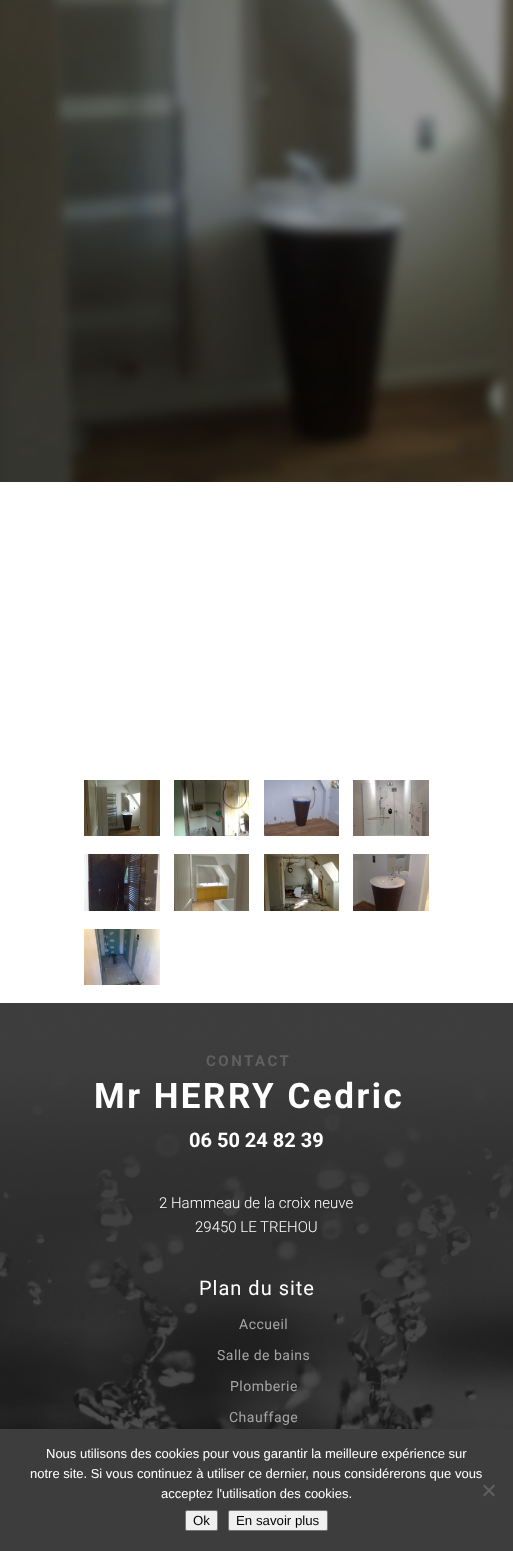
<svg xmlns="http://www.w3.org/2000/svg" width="513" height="1551">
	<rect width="100%" height="100%" fill="#FFFFFF" />
	<image x="0" y="0" width="513" height="482" href="assets/img1.png" />
	<image x="84" y="780" width="76" height="56" href="assets/img2.png" />
	<image x="174" y="780" width="75" height="56" href="assets/img3.png" />
	<image x="264" y="780" width="75" height="56" href="assets/img4.png" />
	<image x="353" y="780" width="76" height="56" href="assets/img5.png" />
	<image x="84" y="854" width="76" height="57" href="assets/img6.png" />
	<image x="174" y="854" width="75" height="57" href="assets/img7.png" />
	<image x="264" y="854" width="75" height="57" href="assets/img8.png" />
	<image x="353" y="854" width="76" height="57" href="assets/img9.png" />
	<image x="84" y="929" width="76" height="56" href="assets/img10.png" />
	<image x="0" y="1003" width="513" height="426" href="assets/img11.png" />
	<text x="206" y="1066" font-family="Roboto" font-size="15" font-weight="700" letter-spacing="2.5" fill="#606060">CONTACT</text>
	<text x="94" y="1108" font-family="Roboto" font-size="35" font-weight="700" letter-spacing="2.5" fill="#FFFFFF">Mr HERRY Cedric</text>
	<text x="189" y="1147" font-family="Roboto" font-size="20" font-weight="700" fill="#FFFFFF">06 50 24 82 39</text>
	<g font-family="Roboto" font-size="15" font-weight="300" fill="#FFFFFF">
		<text x="159" y="1208">2 Hammeau de la croix neuve</text>
		<text x="195" y="1232">29450 LE TREHOU</text>
	</g>
	<text x="199" y="1295" font-family="Roboto" font-size="20" letter-spacing="1" fill="#FFFFFF">Plan du site</text>
	<g font-family="Roboto" font-size="14" letter-spacing="0.5" fill="#A6A5A5">
		<text x="239" y="1329">Accueil</text>
		<text x="217" y="1360">Salle de bains</text>
		<text x="230" y="1391">Plomberie</text>
		<text x="229" y="1422">Chauffage</text>
	</g>
	<rect x="0" y="1429" width="513" height="122" fill="#3D3D3D" />
	<g font-family="Liberation Sans" font-size="13" fill="#FFFFFF">
		<text x="46" y="1458">Nous utilisons des cookies pour vous garantir la meilleure expérience sur</text>
		<text x="30" y="1478">notre site. Si vous continuez à utiliser ce dernier, nous considérerons que vous</text>
		<text x="161" y="1498">acceptez l'utilisation des cookies.</text>
	</g>
	<path d="M493.5 1484.5L495 1486L484.5 1496.5L483 1495Z" fill="#5F5F5F" />
	<path d="M483 1486L484.5 1484.5L495 1495L493.5 1496.5Z" fill="#5F5F5F" />
	<rect x="185.5" y="1510.5" width="32" height="20" rx="1.5" fill="#EFEFEF" stroke="#767676" />
	<text x="193" y="1525" font-family="Liberation Sans" font-size="13.25" fill="#000000">Ok</text>
	<rect x="228.5" y="1510.5" width="99" height="20" rx="1.5" fill="#EFEFEF" stroke="#767676" />
	<text x="236" y="1525" font-family="Liberation Sans" font-size="13.25" fill="#000000">En savoir plus</text>
</svg>
